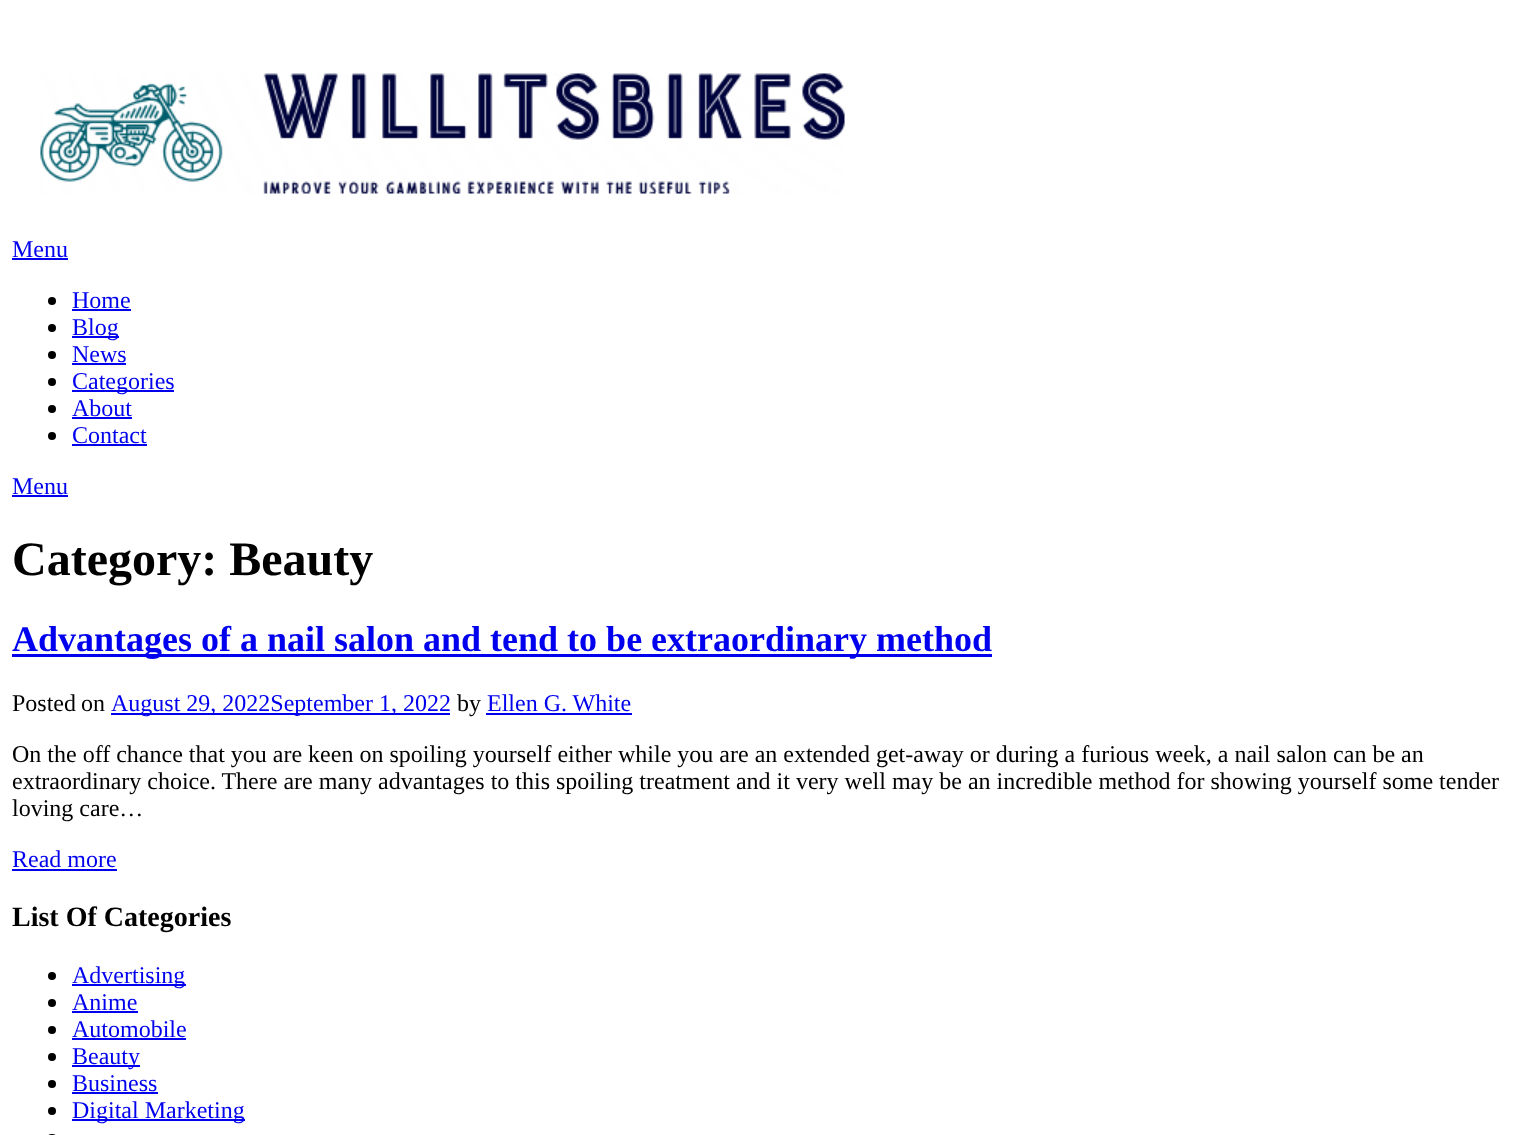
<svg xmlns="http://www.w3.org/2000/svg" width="1536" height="1135">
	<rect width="100%" height="100%" fill="#FFFFFF" />
	<image x="40" y="73" width="805" height="121" href="assets/img1.png" />
	<text x="12" y="257" font-family="Liberation Serif" font-size="24" fill="#0000EE">Menu</text>
	<rect x="12" y="258" width="56" height="2" fill="#0000EE" />
	<circle cx="52" cy="301" r="4" fill="#000000" />
	<text x="72" y="308" font-family="Liberation Serif" font-size="24" fill="#0000EE">Home</text>
	<rect x="72" y="309" width="59" height="2" fill="#0000EE" />
	<circle cx="52" cy="328" r="4" fill="#000000" />
	<rect x="72" y="336" width="47" height="2" fill="#0000EE" />
	<text x="72" y="335" font-family="Liberation Serif" font-size="24" fill="#0000EE">Blog</text>
	<circle cx="52" cy="355" r="4" fill="#000000" />
	<text x="72" y="362" font-family="Liberation Serif" font-size="24" fill="#0000EE">News</text>
	<rect x="72" y="363" width="54" height="2" fill="#0000EE" />
	<circle cx="52" cy="382" r="4" fill="#000000" />
	<rect x="72" y="390" width="102" height="2" fill="#0000EE" />
	<text x="72" y="389" font-family="Liberation Serif" font-size="24" fill="#0000EE">Categories</text>
	<circle cx="52" cy="409" r="4" fill="#000000" />
	<text x="72" y="416" font-family="Liberation Serif" font-size="24" fill="#0000EE">About</text>
	<rect x="72" y="417" width="60" height="2" fill="#0000EE" />
	<circle cx="52" cy="436" r="4" fill="#000000" />
	<text x="72" y="443" font-family="Liberation Serif" font-size="24" fill="#0000EE">Contact</text>
	<rect x="72" y="444" width="75" height="2" fill="#0000EE" />
	<text x="12" y="494" font-family="Liberation Serif" font-size="24" fill="#0000EE">Menu</text>
	<rect x="12" y="495" width="56" height="2" fill="#0000EE" />
	<text x="12" y="575" font-family="Liberation Serif" font-size="48" font-weight="700" fill="#000000">Category: Beauty</text>
	<rect x="12" y="654" width="980" height="3" fill="#0000EE" />
	<text x="12" y="651" font-family="Liberation Serif" font-size="36" font-weight="700" fill="#0000EE">Advantages of a nail salon and tend to be extraordinary method</text>
	<text x="12" y="711" word-spacing="-1" font-family="Liberation Serif" font-size="24" fill="#000000">Posted on</text>
	<rect x="111" y="713" width="339" height="2" fill="#0000EE" />
	<text x="111" y="711" font-family="Liberation Serif" font-size="24" fill="#0000EE">August 29, 2022September 1, 2022</text>
	<text x="457" y="711" font-family="Liberation Serif" font-size="24" fill="#000000">by</text>
	<rect x="486" y="713" width="146" height="2" fill="#0000EE" />
	<text x="487" y="711" font-family="Liberation Serif" font-size="24" fill="#0000EE">Ellen G. White</text>
	<g font-family="Liberation Serif" font-size="24" fill="#000000">
		<text x="12" y="762">On the off chance that you are keen on spoiling yourself either while you are an extended get-away or during a furious week, a nail salon can be an</text>
		<text x="12" y="789">extraordinary choice. There are many advantages to this spoiling treatment and it very well may be an incredible method for showing yourself some tender</text>
		<text x="12" y="816">loving care…</text>
	</g>
	<text x="12" y="867" font-family="Liberation Serif" font-size="24" fill="#0000EE">Read more</text>
	<rect x="12" y="869" width="105" height="2" fill="#0000EE" />
	<text x="12" y="926" font-family="Liberation Serif" font-size="28" font-weight="700" fill="#000000">List Of Categories</text>
	<circle cx="52" cy="976" r="4" fill="#000000" />
	<rect x="72" y="984" width="114" height="2" fill="#0000EE" />
	<text x="72" y="983" font-family="Liberation Serif" font-size="24" fill="#0000EE">Advertising</text>
	<circle cx="52" cy="1003" r="4" fill="#000000" />
	<text x="72" y="1010" font-family="Liberation Serif" font-size="24" fill="#0000EE">Anime</text>
	<rect x="72" y="1011" width="66" height="2" fill="#0000EE" />
	<circle cx="52" cy="1030" r="4" fill="#000000" />
	<text x="72" y="1037" font-family="Liberation Serif" font-size="24" fill="#0000EE">Automobile</text>
	<rect x="72" y="1038" width="114" height="2" fill="#0000EE" />
	<circle cx="52" cy="1057" r="4" fill="#000000" />
	<rect x="72" y="1065" width="68" height="2" fill="#0000EE" />
	<text x="72" y="1064" font-family="Liberation Serif" font-size="24" fill="#0000EE">Beauty</text>
	<circle cx="52" cy="1084" r="4" fill="#000000" />
	<text x="72" y="1091" font-family="Liberation Serif" font-size="24" fill="#0000EE">Business</text>
	<rect x="72" y="1092" width="86" height="2" fill="#0000EE" />
	<circle cx="52" cy="1111" r="4" fill="#000000" />
	<rect x="72" y="1119" width="173" height="2" fill="#0000EE" />
	<text x="72" y="1118" font-family="Liberation Serif" font-size="24" fill="#0000EE">Digital Marketing</text>
	<rect x="48" y="1134" width="8" height="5" rx="4" fill="#000000" />
</svg>
